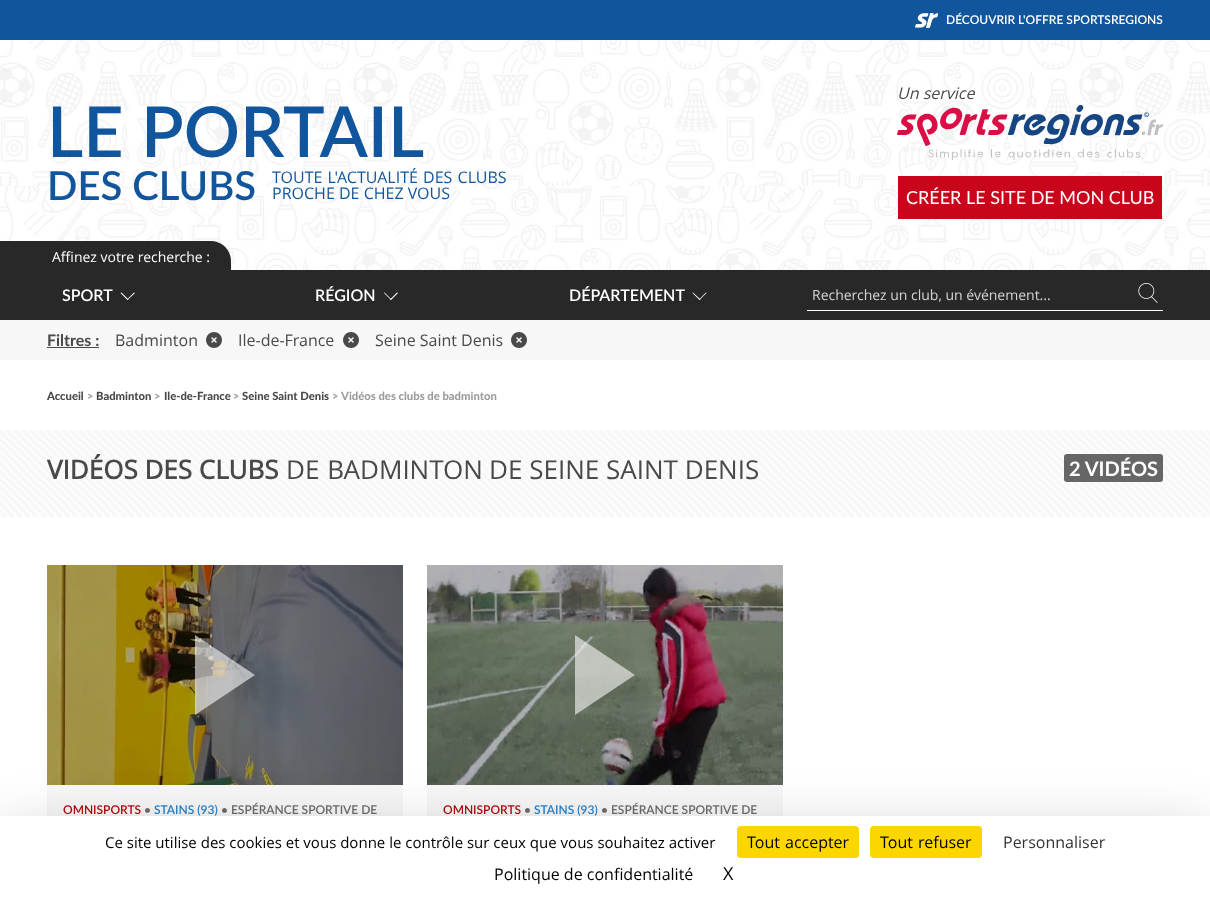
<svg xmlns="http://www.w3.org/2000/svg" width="1210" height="900">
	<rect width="100%" height="100%" fill="#FFFFFF" />
	<image x="0" y="40" width="1210" height="230" href="assets/img1.png" />
	<rect x="0" y="0" width="1210" height="40" fill="#11559C" />
	<image x="915" y="13" width="23" height="15" href="assets/img2.png" />
	<text x="946" y="24" font-family="Lato" font-size="12" font-weight="600" fill="#FFFFFF">DÉCOUVRIR L'OFFRE SPORTSREGIONS</text>
	<text x="47" y="157" font-family="Lato" font-size="70" font-weight="600" fill="#11559C">LE PORTAIL</text>
	<text x="47" y="200" font-family="Lato" font-size="40" font-weight="600" fill="#11559C">DES CLUBS</text>
	<g font-family="Open Sans" font-size="16" fill="#11559C">
		<text x="272" y="183" word-spacing="1">TOUTE L'ACTUALITÉ DES CLUBS</text>
		<text x="272" y="199">PROCHE DE CHEZ VOUS</text>
	</g>
	<text x="897" y="99" font-family="Open Sans" font-size="16" font-style="italic" fill="#494949">Un service</text>
	<image x="897" y="105" width="266" height="55" href="assets/img3.png" />
	<rect x="898" y="176" width="264" height="43" fill="#C9041B" />
	<text x="906" y="204" font-family="Lato" font-size="18" fill="#FFFFFF">CRÉER LE SITE DE MON CLUB</text>
	<rect x="0" y="241" width="47" height="29" fill="#282828" />
	<path d="M47 241H211C222 241 231 250 231 261V270H47Z" fill="#282828" />
	<text x="52" y="262" font-family="Open Sans" font-size="14" fill="#FFFFFF">Affinez votre recherche :</text>
	<rect x="0" y="270" width="1210" height="50" fill="#282828" />
	<text x="62" y="301" font-family="Lato" font-size="16" font-weight="600" fill="#FFFFFF">SPORT</text>
	<path d="M135 293L127.5 300L127 299.5L134 292.5Z" fill="#FFFFFF" />
	<path d="M128.5 299.5L127.5 300L120.5 293L121.5 292.5Z" fill="#FFFFFF" />
	<text x="315" y="301" font-family="Lato" font-size="16" font-weight="600" fill="#FFFFFF">RÉGION</text>
	<path d="M398 293L391 300L390 299.5L397 292.5Z" fill="#FFFFFF" />
	<path d="M391.5 299.5L391 300L384 293L384.5 292.5Z" fill="#FFFFFF" />
	<text x="569" y="301" font-family="Lato" font-size="16" font-weight="600" fill="#FFFFFF">DÉPARTEMENT</text>
	<path d="M706.5 293L699.5 300L699 299.5L706 292.5Z" fill="#FFFFFF" />
	<path d="M700.5 299.5L699.5 300L692.5 293L693 292.5Z" fill="#FFFFFF" />
	<rect x="807" y="310" width="356" height="1" fill="#FFFFFF" />
	<text x="812" y="300" font-family="Open Sans" font-size="14" fill="#D4D4D4">Recherchez un club, un événement...</text>
	<image x="1138" y="283" width="20" height="20" href="assets/img4.png" />
	<rect x="0" y="320" width="1210" height="40" fill="#F7F7F7" />
	<text x="47" y="346" font-family="Lato" font-size="16" font-weight="700" fill="#494949">Filtres :</text>
	<rect x="47" y="347" width="52" height="1" fill="#494949" />
	<text x="115" y="346" font-family="Open Sans" font-size="16" fill="#494949">Badminton</text>
	<image x="206" y="332" width="16" height="16" href="assets/img5.png" />
	<text x="238" y="346" font-family="Open Sans" font-size="16" fill="#494949">Ile-de-France</text>
	<image x="343" y="332" width="16" height="16" href="assets/img5.png" />
	<text x="375" y="346" font-family="Open Sans" font-size="16" fill="#494949">Seine Saint Denis</text>
	<image x="511" y="332" width="16" height="16" href="assets/img5.png" />
	<text x="47" y="400" font-family="Lato" font-size="11.25" font-weight="900" fill="#494949">Accueil</text>
	<text x="87" y="400" font-family="Lato" font-size="11.25" font-weight="900" fill="#9C9C9C">&gt;</text>
	<text x="96" y="400" font-family="Lato" font-size="11.25" font-weight="900" fill="#494949">Badminton</text>
	<text x="154" y="400" font-family="Lato" font-size="11.25" font-weight="900" fill="#9C9C9C">&gt;</text>
	<text x="164" y="400" font-family="Lato" font-size="11.25" font-weight="900" fill="#494949">Ile-de-France</text>
	<text x="233" y="400" font-family="Lato" font-size="11.25" font-weight="900" fill="#9C9C9C">&gt;</text>
	<text x="242" y="400" font-family="Lato" font-size="11.25" font-weight="900" fill="#494949">Seine Saint Denis</text>
	<g font-family="Lato" font-size="11.25" font-weight="900" fill="#9C9C9C">
		<text x="332" y="400">&gt;</text>
		<text x="341" y="400">Vidéos des clubs de badminton</text>
	</g>
	<image x="0" y="430" width="1210" height="87" href="assets/img6.png" />
	<text x="47" y="479" font-family="Open Sans" font-size="26" font-weight="700" fill="#494949">VIDÉOS DES CLUBS</text>
	<g font-family="Open Sans" font-size="26" fill="#494949">
		<text x="286" y="479" word-spacing="1">DE BADMINTON</text>
		<text x="489" y="479">DE SEINE SAINT DENIS</text>
	</g>
	<rect x="1064" y="454" width="99" height="28" rx="3" fill="#666666" />
	<text x="1069" y="476" font-family="Lato" font-size="20" font-weight="700" fill="#FFFFFF">2 VIDÉOS</text>
	<rect x="47" y="785" width="356" height="31" fill="#F7F7F7" />
	<image x="47" y="565" width="356" height="220" href="assets/img7.png" />
	<path d="M195 715V635L255 675Z" fill="#FAFAFA" fill-opacity="0.6" />
	<text x="63" y="814" font-family="Lato" font-size="12" font-weight="600" fill="#B10C0C">OMNISPORTS</text>
	<text x="144" y="814" font-family="Lato" font-size="12" font-weight="600" fill="#6C6C6C">•</text>
	<text x="154" y="814" font-family="Lato" font-size="12" font-weight="600" fill="#2784CC">STAINS (93)</text>
	<text x="221" y="814" font-family="Lato" font-size="12" font-weight="600" fill="#6C6C6C">• ESPÉRANCE SPORTIVE DE</text>
	<rect x="427" y="785" width="356" height="31" fill="#F7F7F7" />
	<image x="427" y="565" width="356" height="220" href="assets/img8.png" />
	<path d="M575 715V635L635 675Z" fill="#FAFAFA" fill-opacity="0.6" />
	<text x="443" y="814" font-family="Lato" font-size="12" font-weight="600" fill="#B10C0C">OMNISPORTS</text>
	<text x="524" y="814" font-family="Lato" font-size="12" font-weight="600" fill="#6C6C6C">•</text>
	<text x="534" y="814" font-family="Lato" font-size="12" font-weight="600" fill="#2784CC">STAINS (93)</text>
	<text x="601" y="814" font-family="Lato" font-size="12" font-weight="600" fill="#6C6C6C">• ESPÉRANCE SPORTIVE DE</text>
	<rect x="0" y="836" width="1210" height="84" fill="#000000" fill-opacity="0.25" filter="blur(30px)" />
	<rect x="0" y="816" width="1210" height="84" fill="#FFFFFF" />
	<text x="105" y="848" font-family="Open Sans" font-size="15" fill="#000000">Ce site utilise des cookies et vous donne le contrôle sur ceux que vous souhaitez activer</text>
	<rect x="737" y="826" width="122" height="32" rx="4" fill="#FBD600" />
	<text x="747" y="848" word-spacing="1" font-family="Open Sans" font-size="16" fill="#000000">Tout accepter</text>
	<rect x="870" y="826" width="112" height="32" rx="4" fill="#FBD600" />
	<text x="880" y="848" word-spacing="1" font-family="Open Sans" font-size="16" fill="#000000">Tout refuser</text>
	<text x="1003" y="848" font-family="Open Sans" font-size="16" fill="#333333">Personnaliser</text>
	<text x="494" y="880" font-family="Open Sans" font-size="16" fill="#000000">Politique de confidentialité</text>
	<text x="723" y="880" font-family="Open Sans" font-size="18" fill="#000000">X</text>
</svg>
